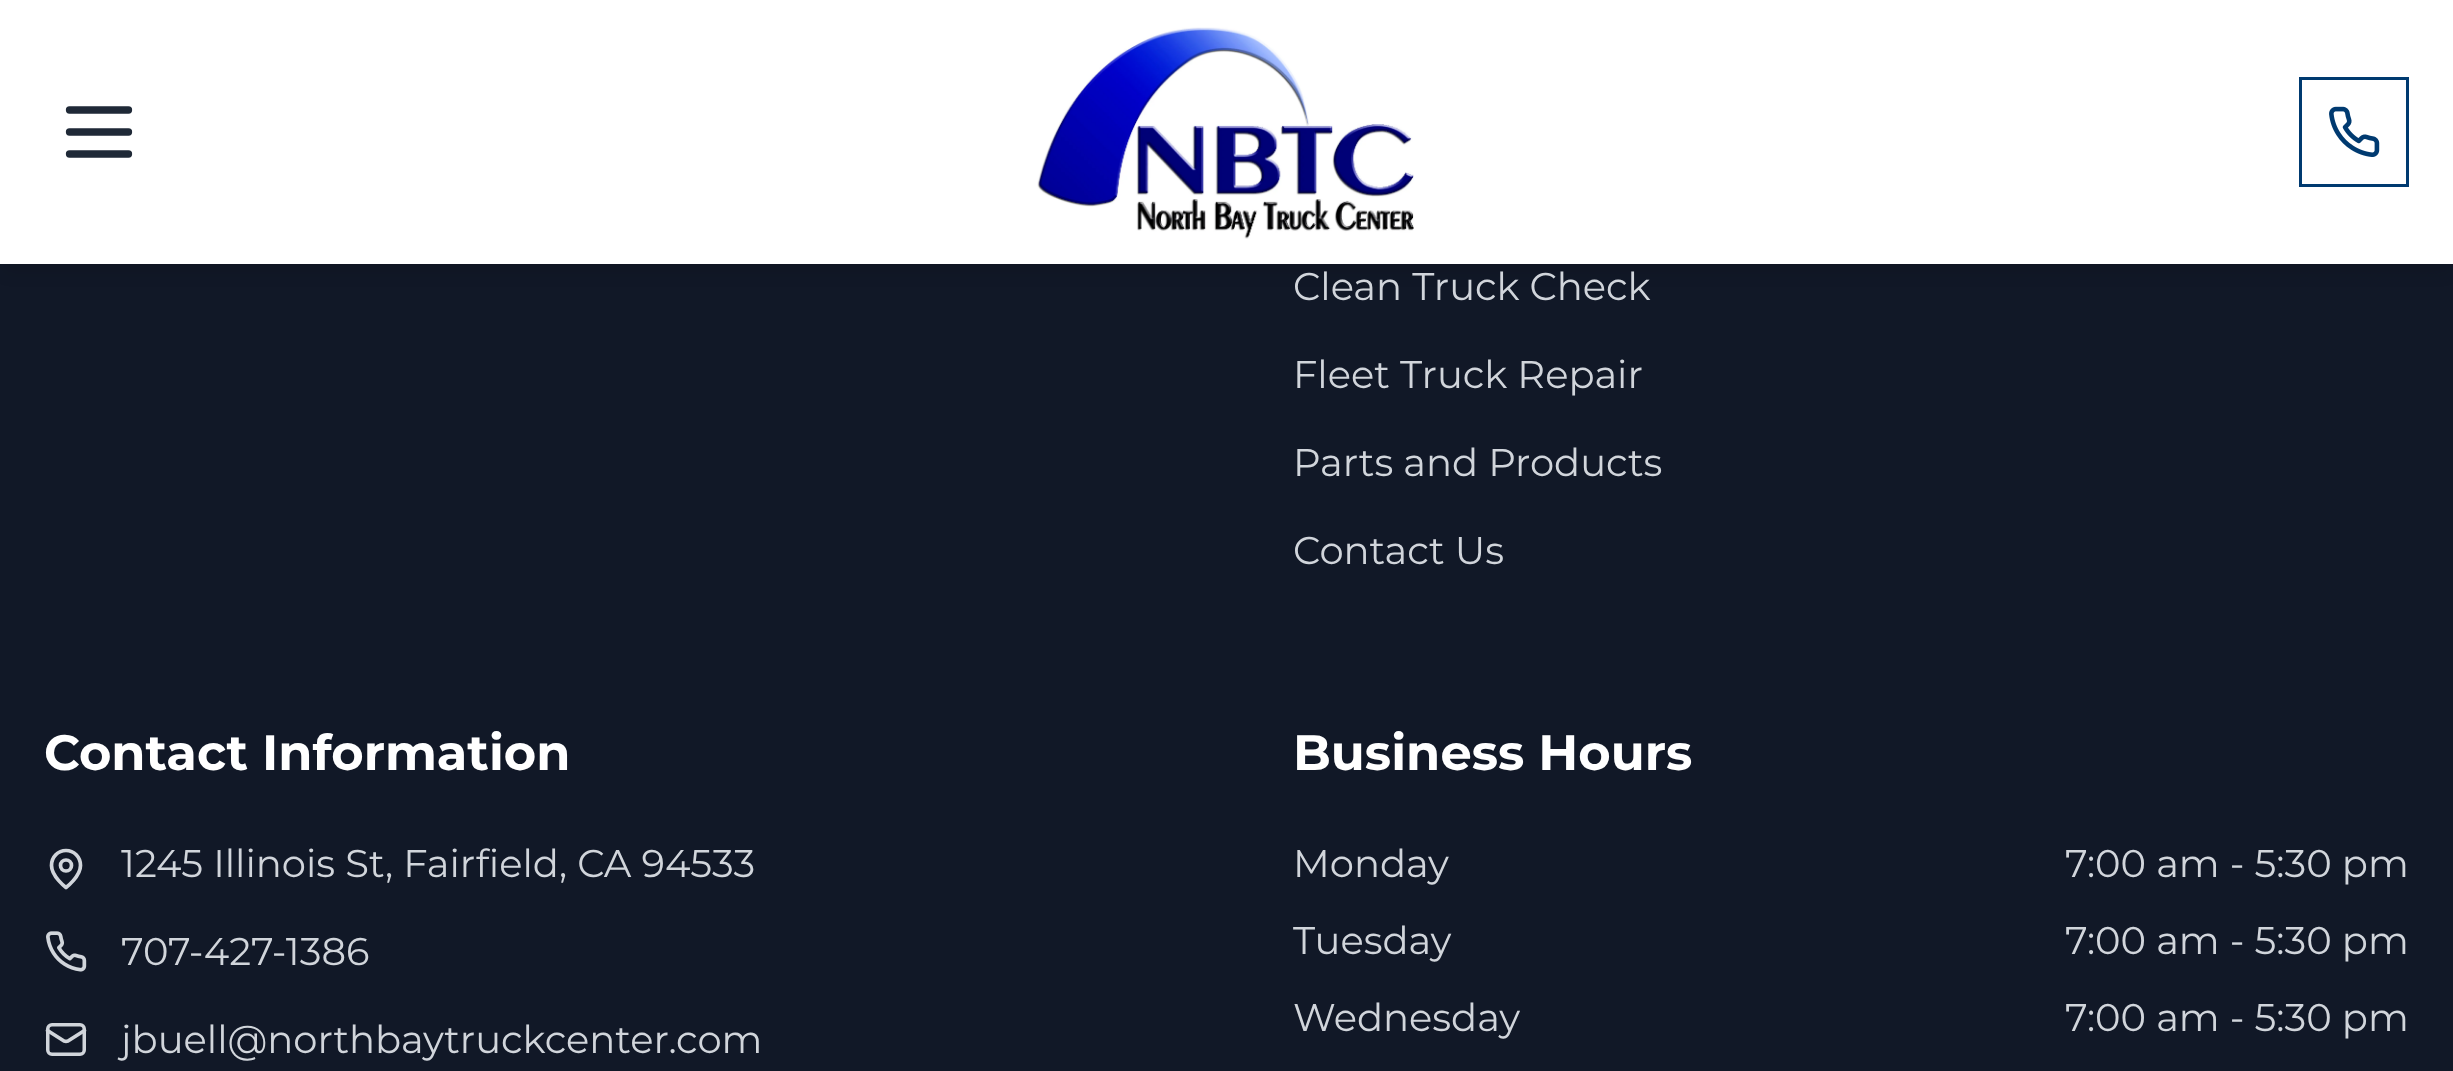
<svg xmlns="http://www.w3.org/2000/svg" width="2453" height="1071">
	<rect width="100%" height="100%" fill="#111827" />
	<rect x="3" y="14" width="2447" height="258" fill="#000000" fill-opacity="0.1" filter="blur(8px)" />
	<rect x="0" y="0" width="2453" height="264" fill="#FFFFFF" />
	<path d="M69.5 132H128.5" fill="none" stroke="#1F2937" stroke-width="7.3" stroke-linecap="round" stroke-linejoin="round" />
	<path d="M69.5 110H128.5" fill="none" stroke="#1F2937" stroke-width="7.3" stroke-linecap="round" stroke-linejoin="round" />
	<path d="M69.5 154H128.5" fill="none" stroke="#1F2937" stroke-width="7.3" stroke-linecap="round" stroke-linejoin="round" />
	<image x="1037" y="27" width="377" height="212" href="assets/img1.png" />
	<rect x="2300.5" y="78.5" width="107" height="107" fill="none" stroke="#003A70" stroke-width="3" />
	<image x="2329" y="106" width="51" height="51" href="assets/img2.png" />
	<g font-family="Montserrat" font-size="38.5" fill="#D1D5DB">
		<text x="1293" y="300">Clean Truck Check</text>
		<text x="1293" y="388">Fleet Truck Repair</text>
		<text x="1293" y="476">Parts and Products</text>
		<text x="1293" y="564">Contact Us</text>
	</g>
	<text x="44" y="770" font-family="Montserrat" font-size="49.5" font-weight="700" fill="#FFFFFF">Contact Information</text>
	<path d="M80.5 865.5C80.5 876.5 66 887.5 66 887.5C66 887.5 51.5 876.5 51.5 865.5C51.5 857 58 850.5 66 850.5C74 850.5 80.5 857 80.5 865.5Z" fill="none" stroke="#D1D5DB" stroke-width="3.7" stroke-linecap="round" stroke-linejoin="round" />
	<circle cx="66" cy="865.5" r="5.5" fill="none" stroke="#D1D5DB" stroke-width="3.7" />
	<text x="121" y="877" font-family="Montserrat" font-size="38.5" fill="#D1D5DB">1245 Illinois St, Fairfield, CA 94533</text>
	<image x="46" y="931" width="41" height="41" href="assets/img3.png" />
	<text x="121" y="965" font-family="Montserrat" font-size="38.5" fill="#D1D5DB">707-427-1386</text>
	<rect x="47.75" y="1024.75" width="36.5" height="29.5" rx="4.25" fill="none" stroke="#D1D5DB" stroke-width="3.5" />
	<path d="M84.5 1030.5L68 1041C66.5 1041.5 65.5 1041.5 64 1041L47.5 1030.5" fill="none" stroke="#D1D5DB" stroke-width="3.7" stroke-linecap="round" stroke-linejoin="round" />
	<text x="121" y="1053" font-family="Montserrat" font-size="38.5" fill="#D1D5DB">jbuell@northbaytruckcenter.com</text>
	<text x="1293" y="770" font-family="Montserrat" font-size="49.5" font-weight="700" fill="#FFFFFF">Business Hours</text>
	<g font-family="Montserrat" font-size="38.5" fill="#D1D5DB">
		<text x="1293" y="877">Monday</text>
		<text x="2065" y="877">7:00 am - 5:30 pm</text>
		<text x="1293" y="954">Tuesday</text>
		<text x="2065" y="954">7:00 am - 5:30 pm</text>
		<text x="1293" y="1031">Wednesday</text>
		<text x="2065" y="1031">7:00 am - 5:30 pm</text>
	</g>
</svg>
